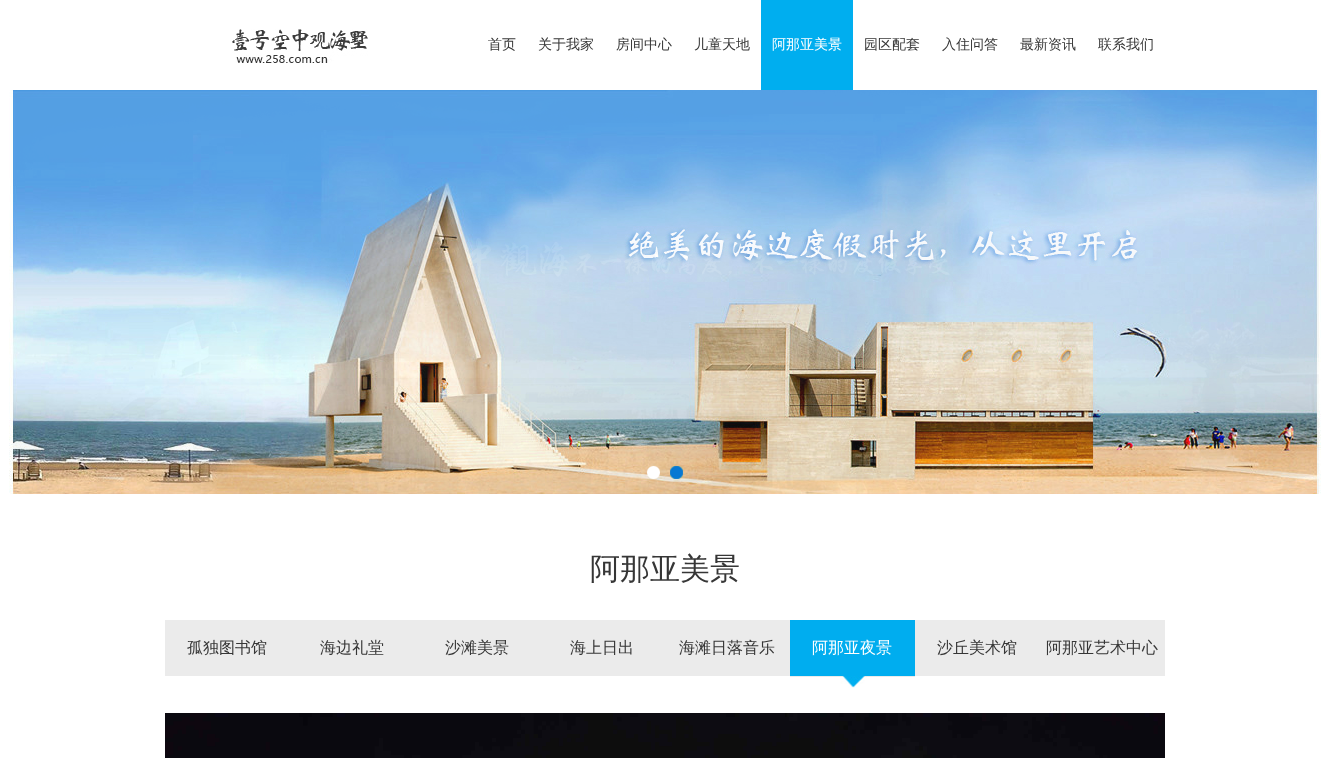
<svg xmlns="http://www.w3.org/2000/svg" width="1329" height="758">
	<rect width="100%" height="100%" fill="#FFFFFF" />
	<image x="232" y="29" width="136" height="34" href="assets/img1.png" />
	<g font-family="WenQuanYi Zen Hei" font-size="14" font-weight="500" fill="#363636">
		<text x="488" y="49">首页</text>
		<text x="538" y="49">关于我家</text>
		<text x="616" y="49">房间中心</text>
		<text x="694" y="49">儿童天地</text>
	</g>
	<rect x="761" y="0" width="92" height="90" fill="#00AEEF" />
	<text x="772" y="49" font-family="WenQuanYi Zen Hei" font-size="14" font-weight="500" fill="#FFFFFF">阿那亚美景</text>
	<g font-family="WenQuanYi Zen Hei" font-size="14" font-weight="500" fill="#363636">
		<text x="864" y="49">园区配套</text>
		<text x="942" y="49">入住问答</text>
		<text x="1020" y="49">最新资讯</text>
		<text x="1098" y="49">联系我们</text>
	</g>
	<image x="9" y="90" width="1312" height="404" href="assets/img2.png" />
	<image x="13" y="90" width="1306" height="404" href="assets/img3.png" />
	<image x="647" y="466" width="13" height="13" href="assets/img4.png" />
	<image x="670" y="466" width="13" height="13" href="assets/img5.png" />
	<text x="590" y="579" font-family="WenQuanYi Zen Hei" font-size="30" font-weight="500" fill="#363636">阿那亚美景</text>
	<rect x="165" y="620" width="1000" height="56" fill="#EBEBEB" />
	<g font-family="WenQuanYi Zen Hei" font-size="16" font-weight="500" fill="#363636">
		<text x="187" y="653">孤独图书馆</text>
		<text x="320" y="653">海边礼堂</text>
		<text x="445" y="653">沙滩美景</text>
		<text x="570" y="653">海上日出</text>
		<text x="679" y="653">海滩日落音乐</text>
	</g>
	<image x="790" y="620" width="125" height="68" href="assets/img6.png" />
	<text x="812" y="653" font-family="WenQuanYi Zen Hei" font-size="16" font-weight="500" fill="#FFFFFF">阿那亚夜景</text>
	<g font-family="WenQuanYi Zen Hei" font-size="16" font-weight="500" fill="#363636">
		<text x="937" y="653">沙丘美术馆</text>
		<text x="1046" y="653">阿那亚艺术中心</text>
	</g>
	<image x="165" y="713" width="1000" height="45" href="assets/img7.png" />
</svg>
